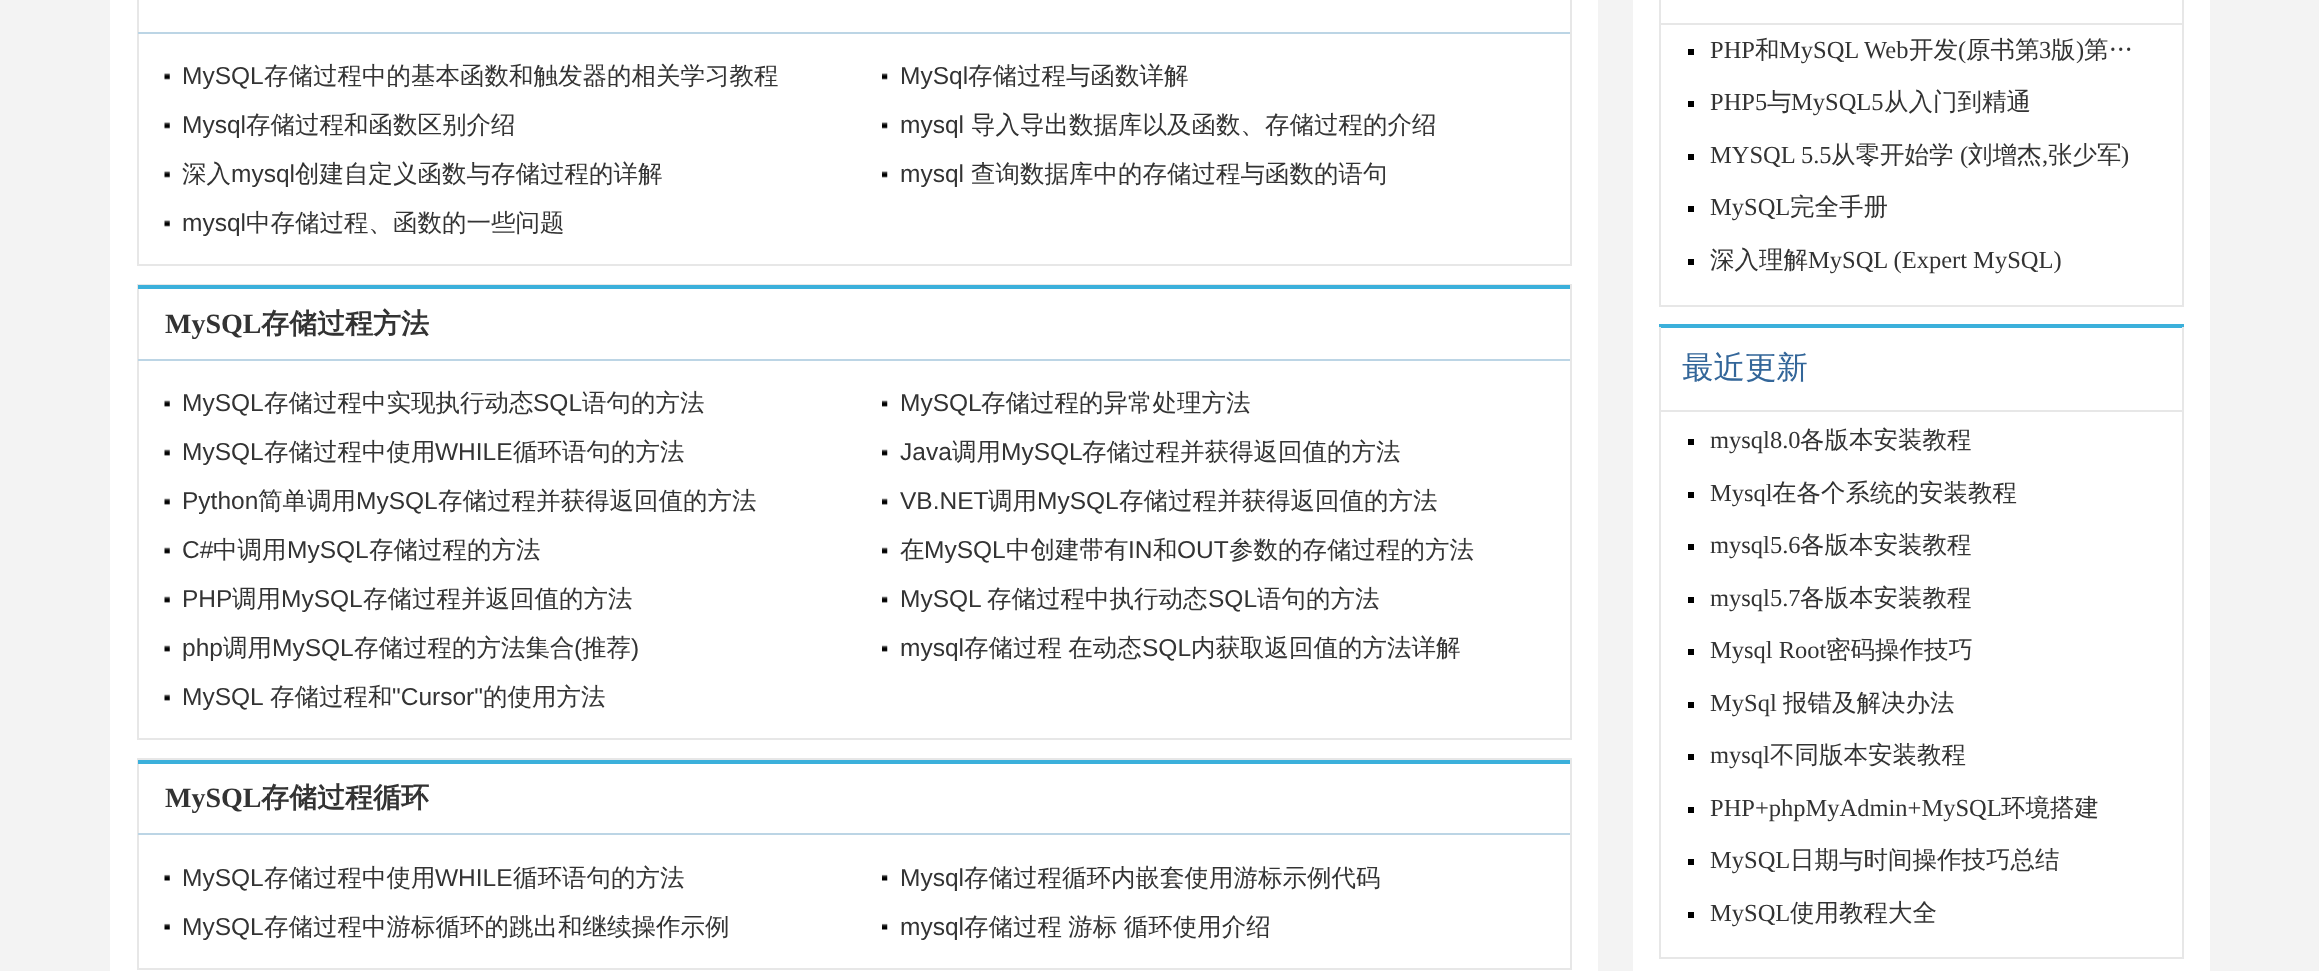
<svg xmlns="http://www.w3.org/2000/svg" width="2319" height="971">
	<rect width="100%" height="100%" fill="#F3F3F3" />
	<rect x="110" y="0" width="1488" height="971" fill="#FFFFFF" />
	<rect x="138" y="-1" width="1433" height="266" fill="none" stroke="#E7E7E7" stroke-width="2" />
	<rect x="138" y="32" width="1432" height="2" fill="#BCD5E5" />
	<image x="164" y="73" width="6" height="7" href="assets/img1.png" />
	<text x="182" y="84" font-family="Liberation Sans" font-size="24.5" fill="#333333">MySQL</text>
	<text x="264" y="84" font-family="WenQuanYi Zen Hei" font-size="24.5" font-weight="500" fill="#333333">存储过程中的基本函数和触发器的相关学习教程</text>
	<image x="882" y="73" width="6" height="7" href="assets/img2.png" />
	<text x="900" y="84" font-family="Liberation Sans" font-size="24.5" fill="#333333">MySql</text>
	<text x="968" y="84" font-family="WenQuanYi Zen Hei" font-size="24.5" font-weight="500" fill="#333333">存储过程与函数详解</text>
	<image x="164" y="122" width="6" height="7" href="assets/img1.png" />
	<text x="182" y="133" font-family="Liberation Sans" font-size="24.5" fill="#333333">Mysql</text>
	<text x="246" y="133" font-family="WenQuanYi Zen Hei" font-size="24.5" font-weight="500" fill="#333333">存储过程和函数区别介绍</text>
	<image x="882" y="122" width="6" height="7" href="assets/img2.png" />
	<text x="900" y="133" font-family="Liberation Sans" font-size="24.5" fill="#333333">mysql</text>
	<text x="971" y="133" font-family="WenQuanYi Zen Hei" font-size="24.5" font-weight="500" fill="#333333">导入导出数据库以及函数、存储过程的介绍</text>
	<image x="164" y="171" width="6" height="7" href="assets/img3.png" />
	<text x="182" y="182" font-family="WenQuanYi Zen Hei" font-size="24.5" font-weight="500" fill="#333333">深入</text>
	<text x="231" y="182" font-family="Liberation Sans" font-size="24.5" fill="#333333">mysql</text>
	<text x="295" y="182" font-family="WenQuanYi Zen Hei" font-size="24.5" font-weight="500" fill="#333333">创建自定义函数与存储过程的详解</text>
	<image x="882" y="171" width="6" height="7" href="assets/img4.png" />
	<text x="900" y="182" font-family="Liberation Sans" font-size="24.5" fill="#333333">mysql</text>
	<text x="971" y="182" font-family="WenQuanYi Zen Hei" font-size="24.5" font-weight="500" fill="#333333">查询数据库中的存储过程与函数的语句</text>
	<image x="164" y="220" width="6" height="7" href="assets/img3.png" />
	<text x="182" y="231" font-family="Liberation Sans" font-size="24.5" fill="#333333">mysql</text>
	<text x="246" y="231" font-family="WenQuanYi Zen Hei" font-size="24.5" font-weight="500" fill="#333333">中存储过程、函数的一些问题</text>
	<rect x="138" y="285" width="1433" height="454" fill="none" stroke="#E7E7E7" stroke-width="2" />
	<rect x="138" y="285" width="1432" height="4" fill="#3BB0DB" />
	<rect x="138" y="359" width="1432" height="2" fill="#BCD5E5" />
	<text x="165" y="333" font-family="Liberation Serif" font-size="28" font-weight="700" fill="#333333">MySQL</text>
	<text x="261" y="333" font-family="WenQuanYi Zen Hei" font-size="28" font-weight="700" fill="#333333">存储过程方法</text>
	<image x="164" y="400" width="6" height="7" href="assets/img5.png" />
	<text x="182" y="411" font-family="Liberation Sans" font-size="24.5" fill="#333333">MySQL</text>
	<text x="264" y="411" font-family="WenQuanYi Zen Hei" font-size="24.5" font-weight="500" fill="#333333">存储过程中实现执行动态</text>
	<text x="533" y="411" font-family="Liberation Sans" font-size="24.5" fill="#333333">SQL</text>
	<text x="582" y="411" font-family="WenQuanYi Zen Hei" font-size="24.5" font-weight="500" fill="#333333">语句的方法</text>
	<image x="882" y="400" width="6" height="7" href="assets/img6.png" />
	<text x="900" y="411" font-family="Liberation Sans" font-size="24.5" fill="#333333">MySQL</text>
	<text x="981" y="411" font-family="WenQuanYi Zen Hei" font-size="24.5" font-weight="500" fill="#333333">存储过程的异常处理方法</text>
	<image x="164" y="449" width="6" height="7" href="assets/img5.png" />
	<text x="182" y="460" font-family="Liberation Sans" font-size="24.5" fill="#333333">MySQL</text>
	<text x="264" y="460" font-family="WenQuanYi Zen Hei" font-size="24.5" font-weight="500" fill="#333333">存储过程中使用</text>
	<text x="435" y="460" font-family="Liberation Sans" font-size="24.5" fill="#333333">WHILE</text>
	<text x="513" y="460" font-family="WenQuanYi Zen Hei" font-size="24.5" font-weight="500" fill="#333333">循环语句的方法</text>
	<image x="882" y="449" width="6" height="7" href="assets/img6.png" />
	<text x="900" y="460" font-family="Liberation Sans" font-size="24.5" fill="#333333">Java</text>
	<text x="952" y="460" font-family="WenQuanYi Zen Hei" font-size="24.5" font-weight="500" fill="#333333">调用</text>
	<text x="1001" y="460" font-family="Liberation Sans" font-size="24.5" fill="#333333">MySQL</text>
	<text x="1082" y="460" font-family="WenQuanYi Zen Hei" font-size="24.5" font-weight="500" fill="#333333">存储过程并获得返回值的方法</text>
	<image x="164" y="498" width="6" height="7" href="assets/img5.png" />
	<text x="182" y="509" font-family="Liberation Sans" font-size="24.5" fill="#333333">Python</text>
	<text x="258" y="509" font-family="WenQuanYi Zen Hei" font-size="24.5" font-weight="500" fill="#333333">简单调用</text>
	<text x="356" y="509" font-family="Liberation Sans" font-size="24.5" fill="#333333">MySQL</text>
	<text x="438" y="509" font-family="WenQuanYi Zen Hei" font-size="24.5" font-weight="500" fill="#333333">存储过程并获得返回值的方法</text>
	<image x="882" y="498" width="6" height="7" href="assets/img6.png" />
	<text x="900" y="509" font-family="Liberation Sans" font-size="24.5" fill="#333333">VB.NET</text>
	<text x="988" y="509" font-family="WenQuanYi Zen Hei" font-size="24.5" font-weight="500" fill="#333333">调用</text>
	<text x="1037" y="509" font-family="Liberation Sans" font-size="24.5" fill="#333333">MySQL</text>
	<text x="1119" y="509" font-family="WenQuanYi Zen Hei" font-size="24.5" font-weight="500" fill="#333333">存储过程并获得返回值的方法</text>
	<image x="164" y="547" width="6" height="7" href="assets/img5.png" />
	<text x="182" y="558" font-family="Liberation Sans" font-size="24.5" fill="#333333">C#</text>
	<text x="213" y="558" font-family="WenQuanYi Zen Hei" font-size="24.5" font-weight="500" fill="#333333">中调用</text>
	<text x="287" y="558" font-family="Liberation Sans" font-size="24.5" fill="#333333">MySQL</text>
	<text x="369" y="558" font-family="WenQuanYi Zen Hei" font-size="24.5" font-weight="500" fill="#333333">存储过程的方法</text>
	<image x="882" y="547" width="6" height="7" href="assets/img6.png" />
	<text x="900" y="558" font-family="WenQuanYi Zen Hei" font-size="24.5" font-weight="500" fill="#333333">在</text>
	<text x="924" y="558" font-family="Liberation Sans" font-size="24.5" fill="#333333">MySQL</text>
	<text x="1006" y="558" font-family="WenQuanYi Zen Hei" font-size="24.5" font-weight="500" fill="#333333">中创建带有</text>
	<text x="1128" y="558" font-family="Liberation Sans" font-size="24.5" fill="#333333">IN</text>
	<text x="1153" y="558" font-family="WenQuanYi Zen Hei" font-size="24.5" font-weight="500" fill="#333333">和</text>
	<text x="1177" y="558" font-family="Liberation Sans" font-size="24.5" fill="#333333">OUT</text>
	<text x="1229" y="558" font-family="WenQuanYi Zen Hei" font-size="24.5" font-weight="500" fill="#333333">参数的存储过程的方法</text>
	<image x="164" y="596" width="6" height="7" href="assets/img5.png" />
	<text x="182" y="607" font-family="Liberation Sans" font-size="24.5" fill="#333333">PHP</text>
	<text x="232" y="607" font-family="WenQuanYi Zen Hei" font-size="24.5" font-weight="500" fill="#333333">调用</text>
	<text x="281" y="607" font-family="Liberation Sans" font-size="24.5" fill="#333333">MySQL</text>
	<text x="363" y="607" font-family="WenQuanYi Zen Hei" font-size="24.5" font-weight="500" fill="#333333">存储过程并返回值的方法</text>
	<image x="882" y="596" width="6" height="7" href="assets/img6.png" />
	<text x="900" y="607" font-family="Liberation Sans" font-size="24.5" fill="#333333">MySQL</text>
	<text x="987" y="607" font-family="WenQuanYi Zen Hei" font-size="24.5" font-weight="500" fill="#333333">存储过程中执行动态</text>
	<text x="1208" y="607" font-family="Liberation Sans" font-size="24.5" fill="#333333">SQL</text>
	<text x="1257" y="607" font-family="WenQuanYi Zen Hei" font-size="24.5" font-weight="500" fill="#333333">语句的方法</text>
	<image x="164" y="645" width="6" height="7" href="assets/img5.png" />
	<text x="182" y="656" font-family="Liberation Sans" font-size="24.5" fill="#333333">php</text>
	<text x="223" y="656" font-family="WenQuanYi Zen Hei" font-size="24.5" font-weight="500" fill="#333333">调用</text>
	<text x="272" y="656" font-family="Liberation Sans" font-size="24.5" fill="#333333">MySQL</text>
	<text x="354" y="656" font-family="WenQuanYi Zen Hei" font-size="24.5" font-weight="500" fill="#333333">存储过程的方法集合</text>
	<text x="574" y="656" font-family="Liberation Sans" font-size="24.5" fill="#333333">(</text>
	<text x="582" y="656" font-family="WenQuanYi Zen Hei" font-size="24.5" font-weight="500" fill="#333333">推荐</text>
	<text x="631" y="656" font-family="Liberation Sans" font-size="24.5" fill="#333333">)</text>
	<image x="882" y="645" width="6" height="7" href="assets/img6.png" />
	<text x="900" y="656" font-family="Liberation Sans" font-size="24.5" fill="#333333">mysql</text>
	<text x="964" y="656" word-spacing="-1" font-family="WenQuanYi Zen Hei" font-size="24.5" font-weight="500" fill="#333333">存储过程 在动态</text>
	<text x="1142" y="656" font-family="Liberation Sans" font-size="24.5" fill="#333333">SQL</text>
	<text x="1191" y="656" font-family="WenQuanYi Zen Hei" font-size="24.5" font-weight="500" fill="#333333">内获取返回值的方法详解</text>
	<image x="164" y="694" width="6" height="7" href="assets/img5.png" />
	<text x="182" y="705" font-family="Liberation Sans" font-size="24.5" fill="#333333">MySQL</text>
	<text x="270" y="705" font-family="WenQuanYi Zen Hei" font-size="24.5" font-weight="500" fill="#333333">存储过程和</text>
	<text x="392" y="705" font-family="Liberation Sans" font-size="24.5" fill="#333333">"Cursor"</text>
	<text x="483" y="705" font-family="WenQuanYi Zen Hei" font-size="24.5" font-weight="500" fill="#333333">的使用方法</text>
	<rect x="138" y="759" width="1433" height="210" fill="none" stroke="#E7E7E7" stroke-width="2" />
	<rect x="138" y="760" width="1432" height="4" fill="#3BB0DB" />
	<rect x="138" y="833" width="1432" height="2" fill="#BCD5E5" />
	<text x="165" y="807" font-family="Liberation Serif" font-size="28" font-weight="700" fill="#333333">MySQL</text>
	<text x="261" y="807" font-family="WenQuanYi Zen Hei" font-size="28" font-weight="700" fill="#333333">存储过程循环</text>
	<image x="164" y="874" width="6" height="7" href="assets/img7.png" />
	<text x="182" y="886" font-family="Liberation Sans" font-size="24.5" fill="#333333">MySQL</text>
	<text x="264" y="886" font-family="WenQuanYi Zen Hei" font-size="24.5" font-weight="500" fill="#333333">存储过程中使用</text>
	<text x="435" y="886" font-family="Liberation Sans" font-size="24.5" fill="#333333">WHILE</text>
	<text x="513" y="886" font-family="WenQuanYi Zen Hei" font-size="24.5" font-weight="500" fill="#333333">循环语句的方法</text>
	<image x="882" y="874" width="6" height="7" href="assets/img8.png" />
	<text x="900" y="886" font-family="Liberation Sans" font-size="24.5" fill="#333333">Mysql</text>
	<text x="964" y="886" font-family="WenQuanYi Zen Hei" font-size="24.5" font-weight="500" fill="#333333">存储过程循环内嵌套使用游标示例代码</text>
	<image x="164" y="923" width="6" height="7" href="assets/img7.png" />
	<text x="182" y="935" font-family="Liberation Sans" font-size="24.5" fill="#333333">MySQL</text>
	<text x="264" y="935" font-family="WenQuanYi Zen Hei" font-size="24.5" font-weight="500" fill="#333333">存储过程中游标循环的跳出和继续操作示例</text>
	<image x="882" y="923" width="6" height="7" href="assets/img8.png" />
	<text x="900" y="935" font-family="Liberation Sans" font-size="24.5" fill="#333333">mysql</text>
	<text x="964" y="935" word-spacing="-1" font-family="WenQuanYi Zen Hei" font-size="24.5" font-weight="500" fill="#333333">存储过程 游标 循环使用介绍</text>
	<rect x="1633" y="0" width="577" height="971" fill="#FFFFFF" />
	<rect x="2182" y="0" width="2" height="306" fill="#E7E7E7" />
	<rect x="1659" y="305" width="525" height="2" fill="#E7E7E7" />
	<rect x="1659" y="0" width="2" height="306" fill="#E7E7E7" />
	<rect x="1661" y="23" width="521" height="2" fill="#E7E7E7" />
	<rect x="1688" y="49" width="6" height="6" fill="#000000" />
	<text x="1710" y="58" font-family="Liberation Serif" font-size="24.5" fill="#333333">PHP</text>
	<text x="1755" y="58" font-family="WenQuanYi Zen Hei" font-size="24.5" font-weight="500" fill="#333333">和</text>
	<text x="1779" y="58" font-family="Liberation Serif" font-size="24.5" fill="#333333">MySQL Web</text>
	<text x="1909" y="58" font-family="WenQuanYi Zen Hei" font-size="24.5" font-weight="500" fill="#333333">开发</text>
	<text x="1958" y="58" font-family="Liberation Serif" font-size="24.5" fill="#333333">(</text>
	<text x="1966" y="58" font-family="WenQuanYi Zen Hei" font-size="24.5" font-weight="500" fill="#333333">原书第</text>
	<text x="2039" y="58" font-family="Liberation Serif" font-size="24.5" fill="#333333">3</text>
	<text x="2051" y="58" font-family="WenQuanYi Zen Hei" font-size="24.5" font-weight="500" fill="#333333">版</text>
	<text x="2076" y="58" font-family="Liberation Serif" font-size="24.5" fill="#333333">)</text>
	<text x="2084" y="58" font-family="WenQuanYi Zen Hei" font-size="24.5" font-weight="500" fill="#333333">第…</text>
	<rect x="1688" y="101" width="6" height="6" fill="#000000" />
	<text x="1710" y="110" font-family="Liberation Serif" font-size="24.5" fill="#333333">PHP5</text>
	<text x="1767" y="110" font-family="WenQuanYi Zen Hei" font-size="24.5" font-weight="500" fill="#333333">与</text>
	<text x="1791" y="110" font-family="Liberation Serif" font-size="24.5" fill="#333333">MySQL5</text>
	<text x="1884" y="110" font-family="WenQuanYi Zen Hei" font-size="24.5" font-weight="500" fill="#333333">从入门到精通</text>
	<rect x="1688" y="154" width="6" height="6" fill="#000000" />
	<text x="1710" y="163" font-family="Liberation Serif" font-size="24.5" fill="#333333">MYSQL 5.5</text>
	<text x="1831" y="163" font-family="WenQuanYi Zen Hei" font-size="24.5" font-weight="500" fill="#333333">从零开始学</text>
	<text x="1960" y="163" font-family="Liberation Serif" font-size="24.5" fill="#333333">(</text>
	<text x="1968" y="163" font-family="WenQuanYi Zen Hei" font-size="24.5" font-weight="500" fill="#333333">刘增杰</text>
	<text x="2042" y="163" font-family="Liberation Serif" font-size="24.5" fill="#333333">,</text>
	<text x="2048" y="163" font-family="WenQuanYi Zen Hei" font-size="24.5" font-weight="500" fill="#333333">张少军</text>
	<text x="2121" y="163" font-family="Liberation Serif" font-size="24.5" fill="#333333">)</text>
	<rect x="1688" y="206" width="6" height="6" fill="#000000" />
	<text x="1710" y="215" font-family="Liberation Serif" font-size="24.5" fill="#333333">MySQL</text>
	<text x="1790" y="215" font-family="WenQuanYi Zen Hei" font-size="24.5" font-weight="500" fill="#333333">完全手册</text>
	<rect x="1688" y="259" width="6" height="6" fill="#000000" />
	<text x="1710" y="268" font-family="WenQuanYi Zen Hei" font-size="24.5" font-weight="500" fill="#333333">深入理解</text>
	<text x="1808" y="268" font-family="Liberation Serif" font-size="24.5" fill="#333333">MySQL (Expert MySQL)</text>
	<rect x="1659" y="324" width="525" height="4" fill="#3BB0DB" />
	<rect x="2182" y="327" width="2" height="632" fill="#E7E7E7" />
	<rect x="1659" y="957" width="525" height="2" fill="#E7E7E7" />
	<rect x="1659" y="327" width="2" height="632" fill="#E7E7E7" />
	<rect x="1661" y="410" width="521" height="2" fill="#E7E7E7" />
	<text x="1682" y="378" font-family="WenQuanYi Zen Hei" font-size="31.5" font-weight="500" fill="#336699">最近更新</text>
	<rect x="1688" y="439" width="6" height="6" fill="#000000" />
	<text x="1710" y="448" font-family="Liberation Serif" font-size="24.5" fill="#333333">mysql8.0</text>
	<text x="1800" y="448" font-family="WenQuanYi Zen Hei" font-size="24.5" font-weight="500" fill="#333333">各版本安装教程</text>
	<rect x="1688" y="492" width="6" height="6" fill="#000000" />
	<text x="1710" y="501" font-family="Liberation Serif" font-size="24.5" fill="#333333">Mysql</text>
	<text x="1772" y="501" font-family="WenQuanYi Zen Hei" font-size="24.5" font-weight="500" fill="#333333">在各个系统的安装教程</text>
	<rect x="1688" y="544" width="6" height="6" fill="#000000" />
	<text x="1710" y="553" font-family="Liberation Serif" font-size="24.5" fill="#333333">mysql5.6</text>
	<text x="1800" y="553" font-family="WenQuanYi Zen Hei" font-size="24.5" font-weight="500" fill="#333333">各版本安装教程</text>
	<rect x="1688" y="597" width="6" height="6" fill="#000000" />
	<text x="1710" y="606" font-family="Liberation Serif" font-size="24.5" fill="#333333">mysql5.7</text>
	<text x="1800" y="606" font-family="WenQuanYi Zen Hei" font-size="24.5" font-weight="500" fill="#333333">各版本安装教程</text>
	<rect x="1688" y="649" width="6" height="6" fill="#000000" />
	<text x="1710" y="658" font-family="Liberation Serif" font-size="24.5" fill="#333333">Mysql Root</text>
	<text x="1826" y="658" font-family="WenQuanYi Zen Hei" font-size="24.5" font-weight="500" fill="#333333">密码操作技巧</text>
	<rect x="1688" y="702" width="6" height="6" fill="#000000" />
	<text x="1710" y="711" font-family="Liberation Serif" font-size="24.5" fill="#333333">MySql</text>
	<text x="1783" y="711" font-family="WenQuanYi Zen Hei" font-size="24.5" font-weight="500" fill="#333333">报错及解决办法</text>
	<rect x="1688" y="754" width="6" height="6" fill="#000000" />
	<text x="1710" y="763" font-family="Liberation Serif" font-size="24.5" fill="#333333">mysql</text>
	<text x="1770" y="763" font-family="WenQuanYi Zen Hei" font-size="24.5" font-weight="500" fill="#333333">不同版本安装教程</text>
	<rect x="1688" y="807" width="6" height="6" fill="#000000" />
	<text x="1710" y="816" font-family="Liberation Serif" font-size="24.5" fill="#333333">PHP+phpMyAdmin+MySQL</text>
	<text x="2001" y="816" font-family="WenQuanYi Zen Hei" font-size="24.5" font-weight="500" fill="#333333">环境搭建</text>
	<rect x="1688" y="859" width="6" height="6" fill="#000000" />
	<text x="1710" y="868" font-family="Liberation Serif" font-size="24.5" fill="#333333">MySQL</text>
	<text x="1790" y="868" font-family="WenQuanYi Zen Hei" font-size="24.5" font-weight="500" fill="#333333">日期与时间操作技巧总结</text>
	<rect x="1688" y="912" width="6" height="6" fill="#000000" />
	<text x="1710" y="921" font-family="Liberation Serif" font-size="24.5" fill="#333333">MySQL</text>
	<text x="1790" y="921" font-family="WenQuanYi Zen Hei" font-size="24.5" font-weight="500" fill="#333333">使用教程大全</text>
</svg>
